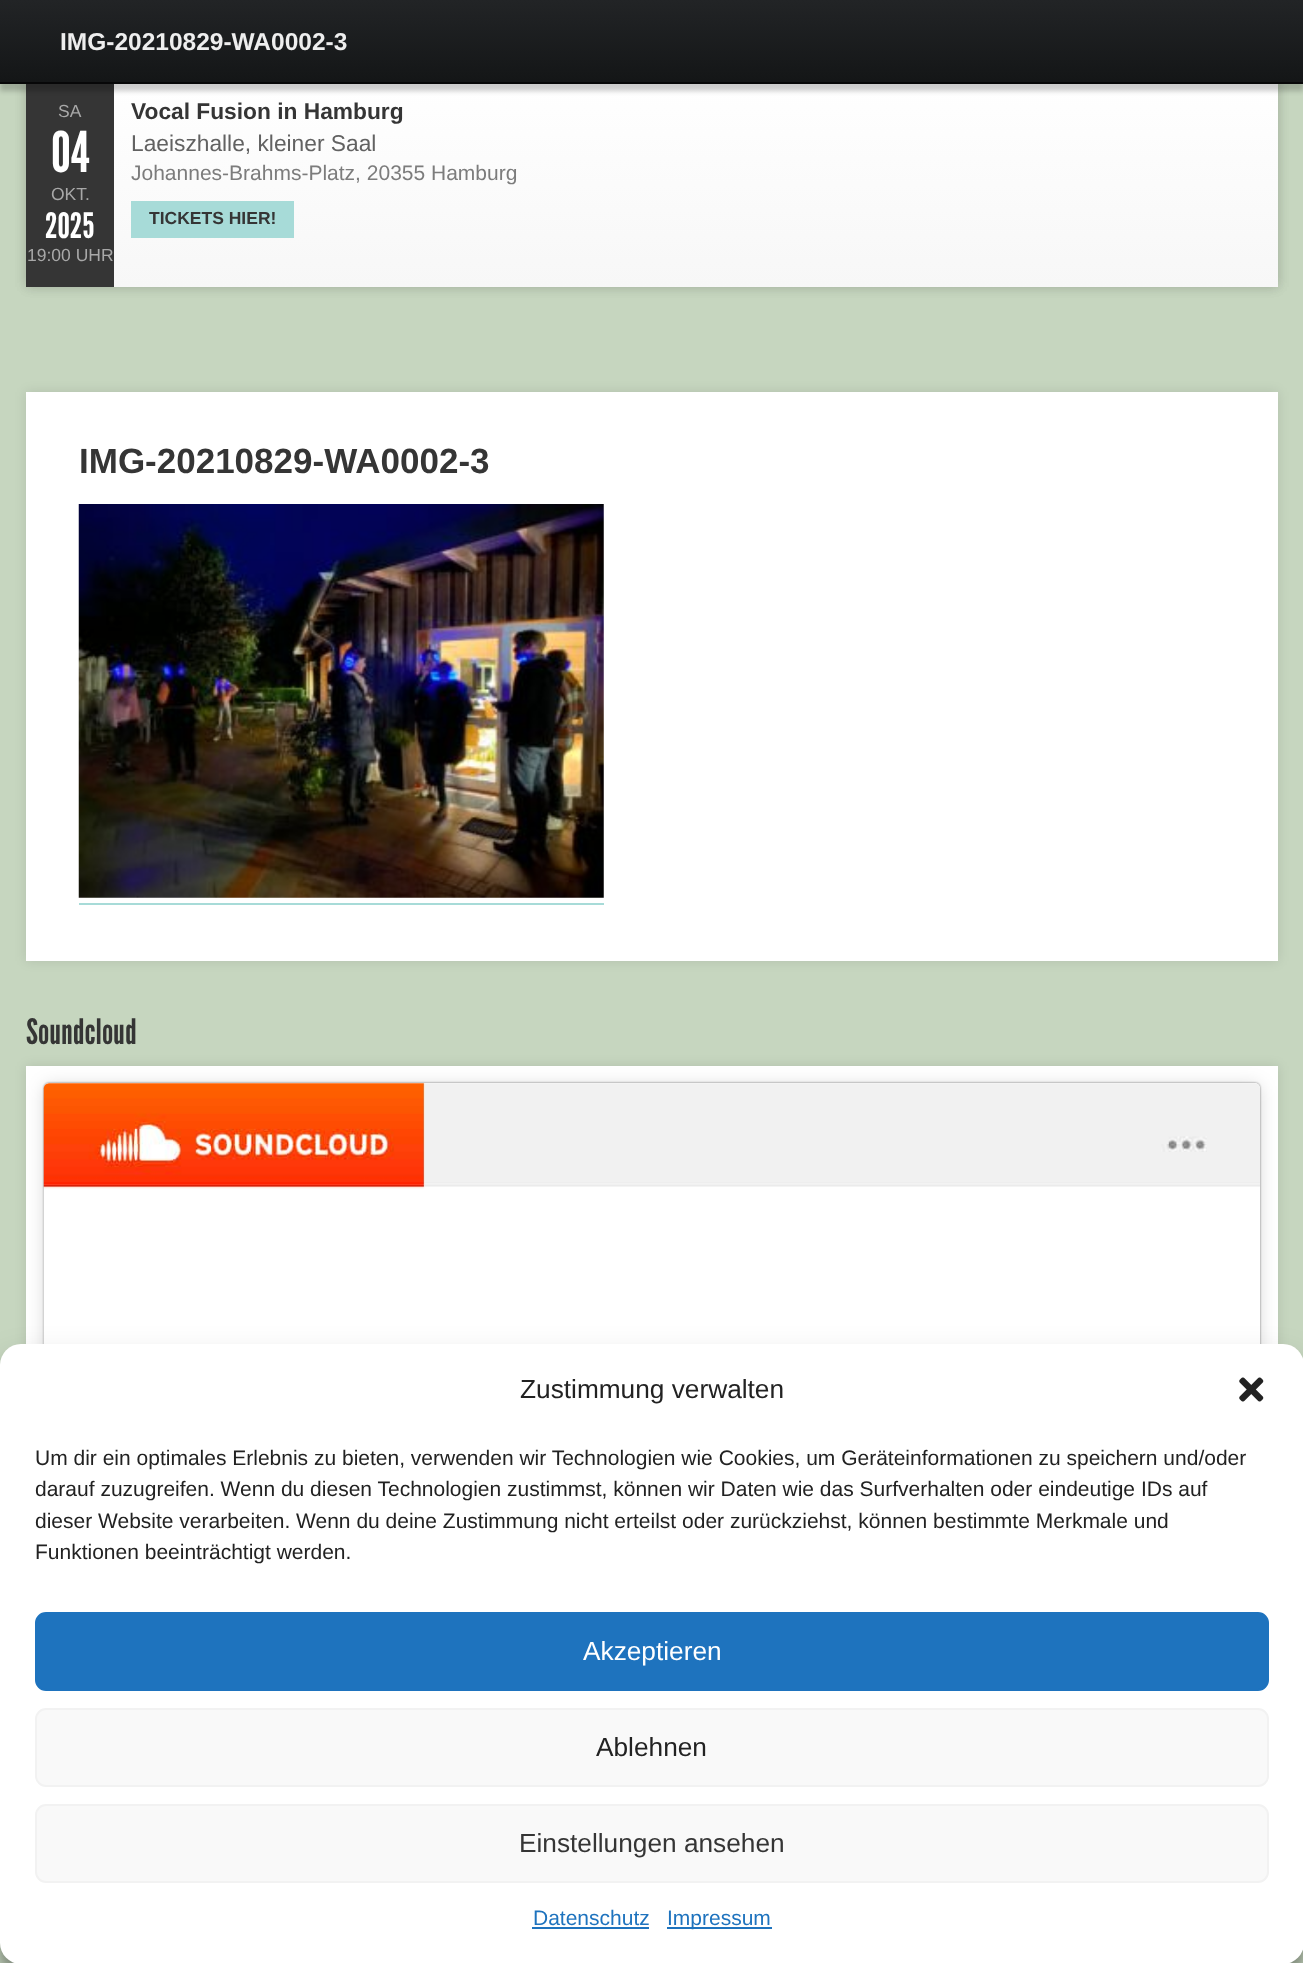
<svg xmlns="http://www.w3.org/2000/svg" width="1303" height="1963">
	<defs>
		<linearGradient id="g1" gradientUnits="userSpaceOnUse" x1="652" y1="82" x2="652" y2="287"><stop offset="0" stop-color="#FFFFFF" /><stop offset="1" stop-color="#F7F7F7" /></linearGradient>
		<linearGradient id="g2" gradientUnits="userSpaceOnUse" x1="0" y1="82" x2="0" y2="0"><stop offset="0.01" stop-color="#141617" /><stop offset="1" stop-color="#222426" /></linearGradient>
	</defs>
	<rect width="100%" height="100%" fill="#C6D6BF" />
	<rect x="26" y="82" width="1252" height="205" fill="#000000" fill-opacity="0.1" filter="blur(6px)" />
	<rect x="26" y="82" width="1252" height="205" fill="#000000" fill-opacity="0.1" filter="blur(6px)" />
	<rect x="114" y="84" width="1164" height="203" fill="url(#g1)" />
	<rect x="26" y="84" width="88" height="203" fill="#353535" />
	<rect x="0" y="7" width="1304" height="84" fill="#000000" fill-opacity="0.2" filter="blur(2.5px)" />
	<rect x="0" y="0" width="1303" height="82" fill="url(#g2)" />
	<rect x="0" y="82" width="1303" height="2" fill="#070708" />
	<text x="60" y="50" font-family="Liberation Sans" font-size="24.5" font-weight="700" fill="#EEEEEE">IMG-20210829-WA0002-3</text>
	<text x="58" y="117" font-family="Liberation Sans" font-size="17.5" fill="#A8A8A8">SA</text>
	<text x="51" y="172" font-family="League Gothic" font-size="56" fill="#FFFFFF">04</text>
	<text x="51" y="200" font-family="Liberation Sans" font-size="17.5" fill="#A8A8A8">OKT.</text>
	<text x="45" y="238" font-family="League Gothic" font-size="35" fill="#FFFFFF">2025</text>
	<text x="27" y="261" font-family="Liberation Sans" font-size="17.5" fill="#A8A8A8">19:00 UHR</text>
	<text x="131" y="119" font-family="Liberation Sans" font-size="22.75" font-weight="700" fill="#353535">Vocal Fusion in Hamburg</text>
	<text x="131" y="151" font-family="Liberation Sans" font-size="22.75" fill="#626262">Laeiszhalle, kleiner Saal</text>
	<text x="131" y="180" font-family="Liberation Sans" font-size="21" fill="#7C7C7C">Johannes-Brahms-Platz, 20355 Hamburg</text>
	<rect x="131" y="201" width="163" height="37" fill="#A7DBD8" />
	<text x="149" y="224" font-family="Liberation Sans" font-size="17.5" font-weight="700" fill="#353535">TICKETS HIER!</text>
	<rect x="26" y="392" width="1252" height="569" fill="#000000" fill-opacity="0.1" filter="blur(6px)" />
	<rect x="26" y="392" width="1252" height="569" fill="#FFFFFF" />
	<text x="79" y="473" font-family="Liberation Sans" font-size="35" font-weight="700" fill="#353535">IMG-20210829-WA0002-3</text>
	<image x="78" y="504" width="526" height="394" href="assets/img1.png" />
	<rect x="79" y="903" width="525" height="2" fill="#A7DBD8" />
	<rect x="26" y="1066" width="1252" height="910" fill="#000000" fill-opacity="0.1" filter="blur(6px)" />
	<rect x="26" y="1066" width="1252" height="278" fill="#FFFFFF" />
	<text x="26" y="1044" font-family="League Gothic" font-size="35" fill="#353535">Soundcloud</text>
	<rect x="44" y="1085" width="1216" height="875" rx="5" fill="#000000" fill-opacity="0.15" filter="blur(9px)" />
	<rect x="44" y="1083" width="1216" height="875" rx="5" fill="#000000" fill-opacity="0.5" filter="blur(1px)" />
	<rect x="44" y="1083" width="1216" height="875" rx="5" fill="#FFFFFF" />
	<image x="43" y="1083" width="1217" height="261" href="assets/img2.png" />
	<rect x="0" y="1355" width="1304" height="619" rx="21" fill="#000000" fill-opacity="0.23" filter="blur(5px)" />
	<rect x="0" y="1362" width="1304" height="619" rx="21" fill="#000000" fill-opacity="0.19" filter="blur(17.5px)" />
	<rect x="0" y="1344" width="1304" height="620" rx="21" fill="#FFFFFF" />
	<text x="520" y="1398" font-family="Liberation Sans" font-size="26.25" fill="#222222">Zustimmung verwalten</text>
	<image x="1239" y="1377" width="25" height="25" href="assets/img3.png" />
	<g font-family="Liberation Sans" font-size="21" fill="#222222">
		<text x="35" y="1465">Um dir ein optimales Erlebnis zu bieten, verwenden wir Technologien wie Cookies, um Geräteinformationen zu speichern und/oder</text>
		<text x="35" y="1496">darauf zuzugreifen. Wenn du diesen Technologien zustimmst, können wir Daten wie das Surfverhalten oder eindeutige IDs auf</text>
		<text x="35" y="1528">dieser Website verarbeiten. Wenn du deine Zustimmung nicht erteilst oder zurückziehst, können bestimmte Merkmale und</text>
		<text x="35" y="1559">Funktionen beeinträchtigt werden.</text>
	</g>
	<rect x="36" y="1613" width="1232" height="77" rx="10" fill="#1E73BE" stroke="#1E73BE" stroke-width="2" />
	<text x="583" y="1660" font-family="Liberation Sans" font-size="26.25" fill="#FFFFFF">Akzeptieren</text>
	<rect x="36" y="1709" width="1232" height="77" rx="10" fill="#F9F9F9" stroke="#F2F2F2" stroke-width="2" />
	<text x="596" y="1756" font-family="Liberation Sans" font-size="26.25" fill="#222222">Ablehnen</text>
	<rect x="36" y="1805" width="1232" height="77" rx="10" fill="#F9F9F9" stroke="#F2F2F2" stroke-width="2" />
	<text x="519" y="1852" font-family="Liberation Sans" font-size="26.25" fill="#353535">Einstellungen ansehen</text>
	<text x="533" y="1925" font-family="Liberation Sans" font-size="21" fill="#1E73BE">Datenschutz</text>
	<rect x="532" y="1927" width="117" height="2" fill="#1E73BE" />
	<rect x="667" y="1927" width="105" height="2" fill="#1E73BE" />
	<text x="667" y="1925" font-family="Liberation Sans" font-size="21" fill="#1E73BE">Impressum</text>
</svg>
